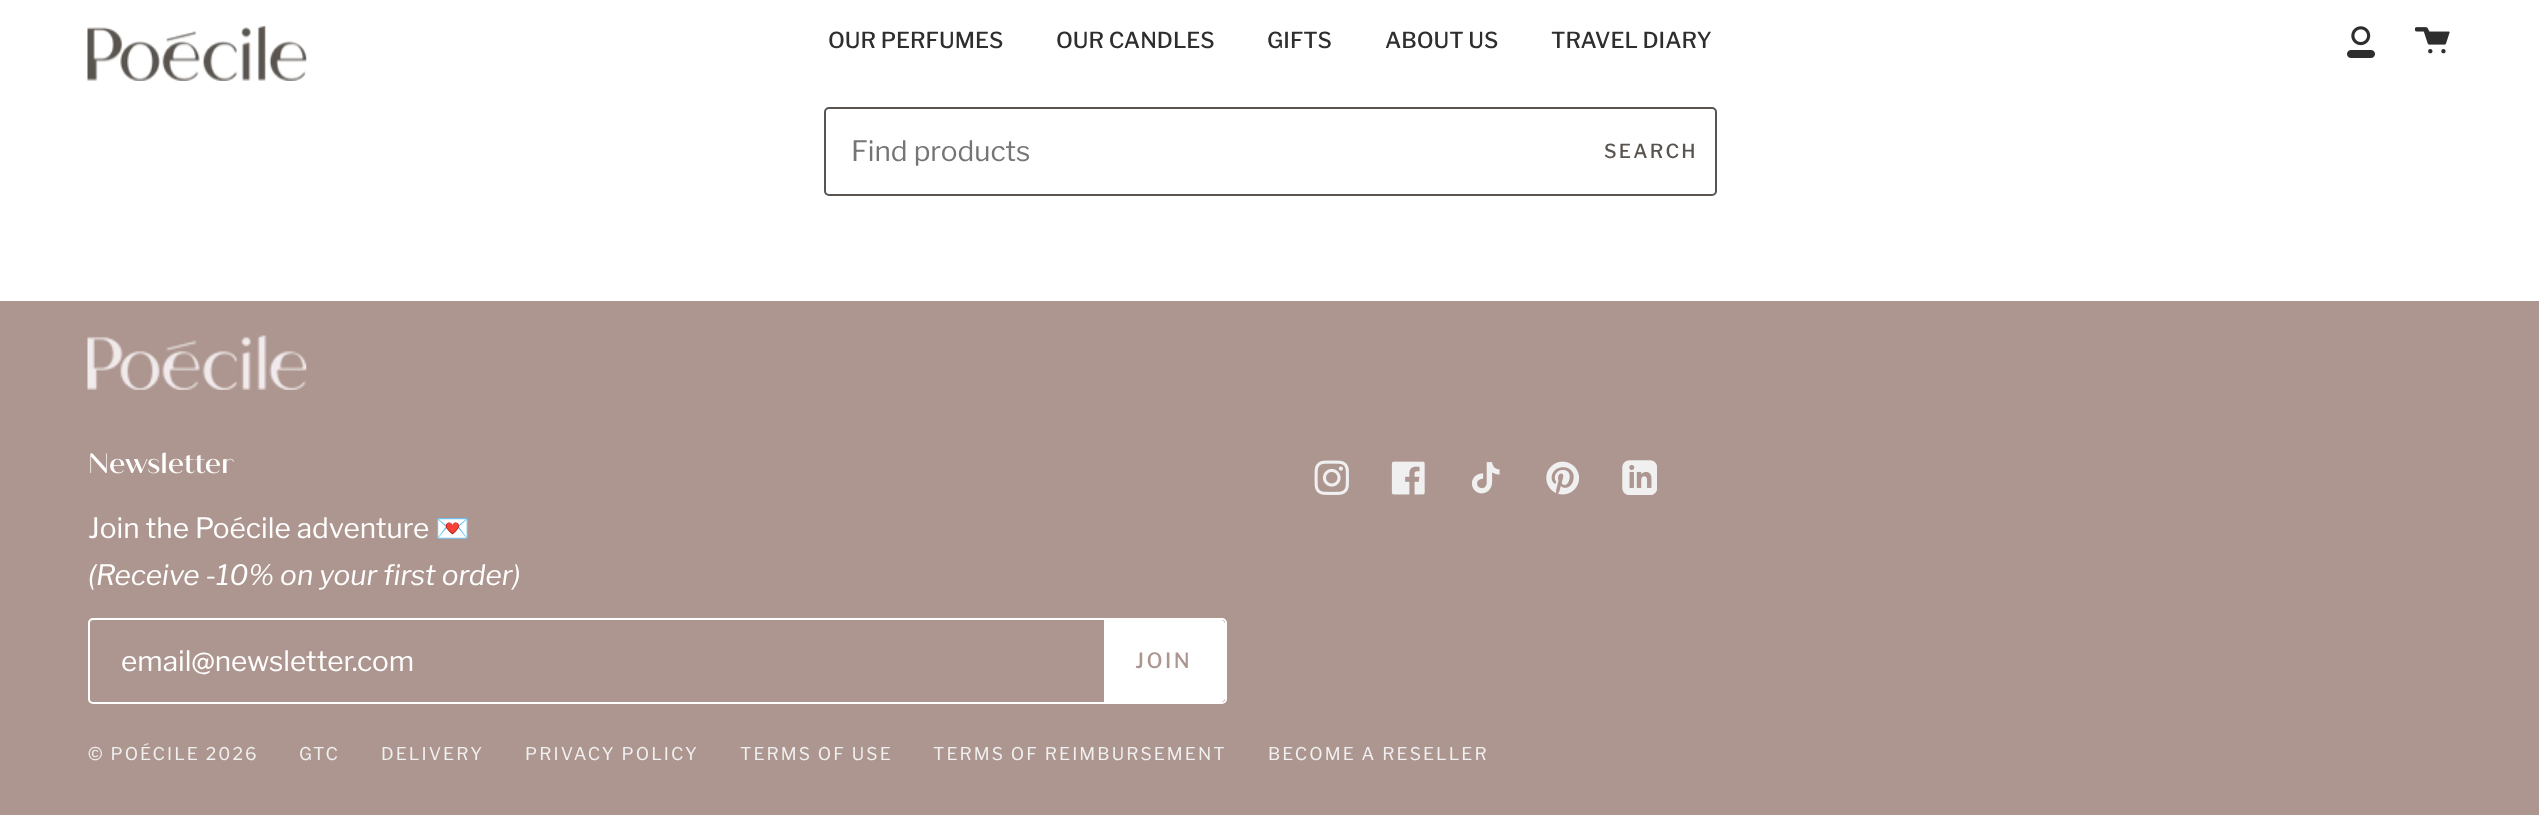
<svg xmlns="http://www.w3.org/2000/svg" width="2539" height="815">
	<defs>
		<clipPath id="clip1"><rect x="89" y="620" width="1136" height="82" rx="4" /></clipPath>
	</defs>
	<rect width="100%" height="100%" fill="#FFFFFF" />
	<image x="87" y="26" width="220" height="55" href="assets/img1.png" />
	<g font-family="Libre Franklin" font-size="22" font-weight="500" fill="#2E2E2E">
		<text x="828" y="48">OUR PERFUMES</text>
		<text x="1056" y="48">OUR CANDLES</text>
		<text x="1267" y="48">GIFTS</text>
		<text x="1385" y="48">ABOUT US</text>
		<text x="1551" y="48">TRAVEL DIARY</text>
	</g>
	<image x="2347" y="26" width="28" height="32" href="assets/img2.png" />
	<image x="2415" y="27" width="35" height="27" href="assets/img3.png" />
	<rect x="825" y="108" width="891" height="87" rx="4" fill="none" stroke="#59544F" stroke-width="2" />
	<text x="851" y="161" font-family="Libre Franklin" font-size="28" fill="#757575">Find products</text>
	<text x="1604" y="158" font-family="Libre Franklin" font-size="19.25" font-weight="500" letter-spacing="2.25" fill="#59544F">SEARCH</text>
	<rect x="0" y="301" width="2539" height="514" fill="#AD968F" />
	<image x="87" y="335" width="220" height="55" href="assets/img4.png" />
	<text x="88" y="473" font-family="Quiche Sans" font-size="28" font-weight="500" fill="#FFFFFF">Newsletter</text>
	<text x="88" y="538" font-family="Libre Franklin" font-size="28" fill="#FFFFFF">Join the Poécile adventure</text>
	<text x="435" y="538" font-family="Noto Color Emoji" font-size="28" fill="#FFFFFF">💌</text>
	<text x="88" y="585" font-family="Libre Franklin" font-size="28" font-style="italic" fill="#FFFFFF">(Receive -10% on your first order)</text>
	<rect x="89" y="619" width="1137" height="84" rx="4" fill="none" stroke="#FFFFFF" stroke-width="2" />
	<text x="121" y="671" font-family="Libre Franklin" font-size="28" fill="#FFFFFF">email@newsletter.com</text>
	<path d="M1104 620H1221C1223 620 1225 622 1225 624V698C1225 700 1223 702 1221 702H1104Z" fill="#FFFFFF" />
	<g clip-path="url(#clip1)">
		<rect x="1104" y="620" width="121" height="82" rx="5" fill="#FFFFFF" />
	</g>
	<text x="1135" y="668" font-family="Libre Franklin" font-size="21" font-weight="500" letter-spacing="2.5" fill="#AD968F">JOIN</text>
	<image x="1314" y="460" width="35" height="35" href="assets/img5.png" />
	<image x="1391" y="461" width="34" height="34" href="assets/img6.png" />
	<image x="1471" y="462" width="29" height="32" href="assets/img7.png" />
	<image x="1546" y="461" width="34" height="34" href="assets/img8.png" />
	<image x="1622" y="460" width="35" height="35" href="assets/img9.png" />
	<g font-family="Libre Franklin" font-size="17.5" letter-spacing="2.1" fill="#F0F0F0">
		<text x="88" y="760">© POÉCILE 2026</text>
		<text x="299" y="760">GTC</text>
		<text x="381" y="760">DELIVERY</text>
		<text x="525" y="760">PRIVACY POLICY</text>
		<text x="740" y="760">TERMS OF USE</text>
		<text x="933" y="760">TERMS OF REIMBURSEMENT</text>
		<text x="1268" y="760">BECOME A RESELLER</text>
	</g>
</svg>
